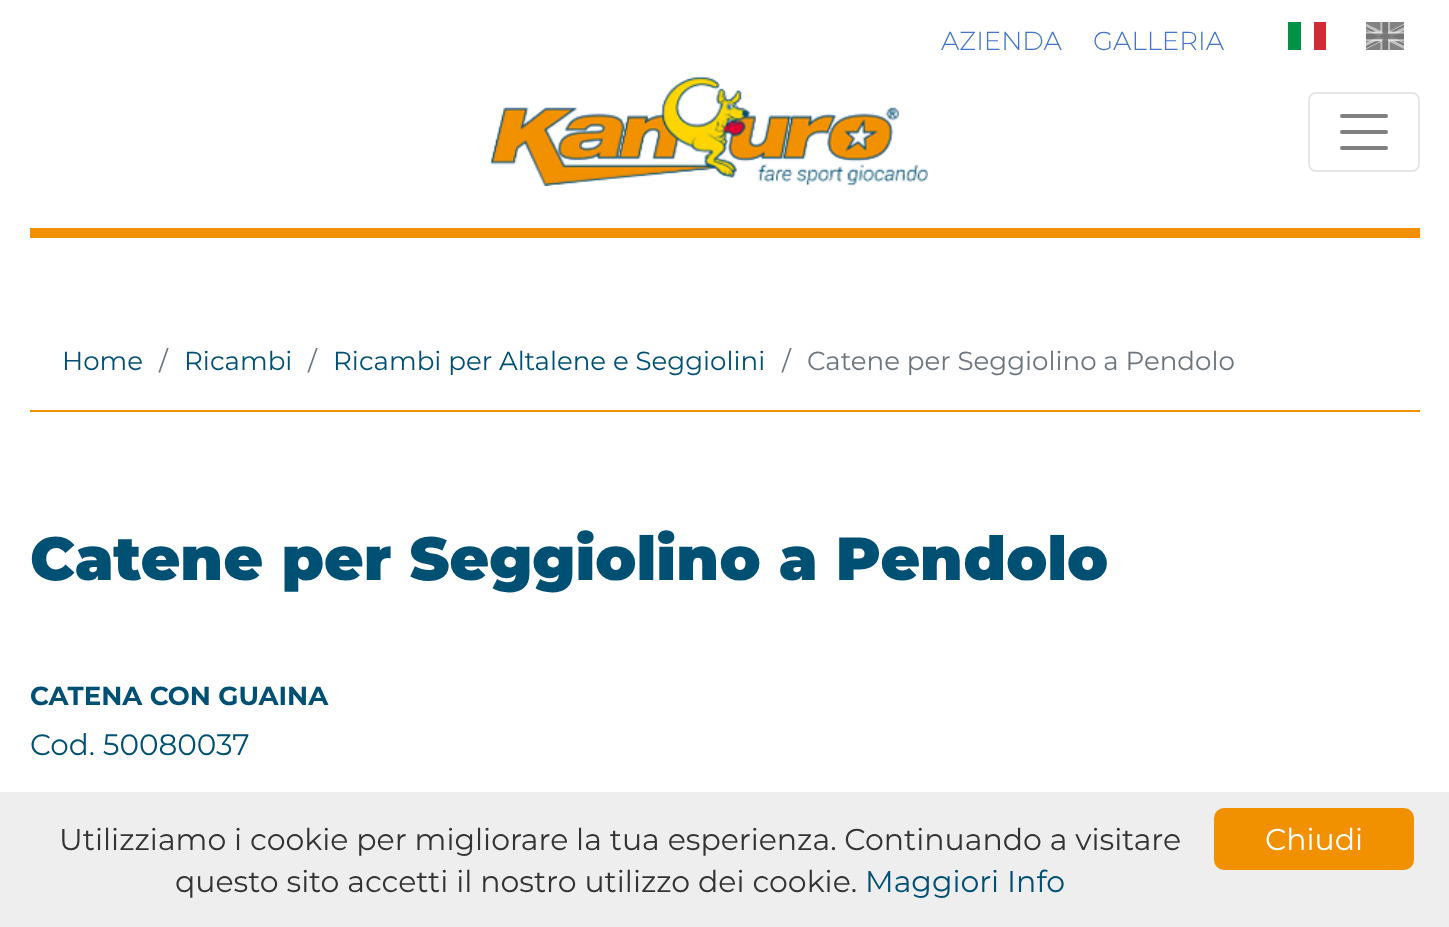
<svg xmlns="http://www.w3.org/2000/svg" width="1449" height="927">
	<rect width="100%" height="100%" fill="#FFFFFF" />
	<rect x="30" y="228" width="1390" height="10" fill="#F19100" />
	<g font-family="Montserrat" font-size="26" font-weight="300" fill="#4275C9">
		<text x="941" y="50">AZIENDA</text>
		<text x="1093" y="50">GALLERIA</text>
	</g>
	<rect x="1288" y="22" width="13" height="28" fill="#009246" />
	<rect x="1314" y="22" width="12" height="28" fill="#CE2B37" />
	<image x="1366" y="22" width="38" height="28" href="assets/img1.png" />
	<image x="490" y="76" width="438" height="110" href="assets/img2.png" />
	<rect x="1309" y="93" width="110" height="78" rx="7" fill="none" stroke="#E6E6E6" stroke-width="2" />
	<path d="M1342 116H1386M1342 132H1386M1342 148H1386" fill="none" stroke="#808080" stroke-width="4" stroke-linecap="round" />
	<rect x="30" y="410" width="1390" height="2" fill="#F19100" />
	<text x="62" y="370" font-family="Montserrat" font-size="26.1" fill="#005073">Home</text>
	<text x="159" y="370" font-family="Montserrat" font-size="26.1" fill="#6C757D">/</text>
	<text x="184" y="370" font-family="Montserrat" font-size="26.1" fill="#005073">Ricambi</text>
	<text x="308" y="370" font-family="Montserrat" font-size="26.1" fill="#6C757D">/</text>
	<text x="333" y="370" font-family="Montserrat" font-size="26.1" fill="#005073">Ricambi per Altalene e Seggiolini</text>
	<g font-family="Montserrat" font-size="26.1" fill="#6C757D">
		<text x="782" y="370">/</text>
		<text x="807" y="370">Catene per Seggiolino a Pendolo</text>
	</g>
	<text x="30" y="580" font-family="Montserrat" font-size="60.75" font-weight="900" fill="#005073">Catene per Seggiolino a Pendolo</text>
	<text x="30" y="705" font-family="Montserrat" font-size="26.1" font-weight="700" fill="#005073">CATENA CON GUAINA</text>
	<text x="30" y="755" font-family="Montserrat" font-size="29.5" fill="#005073">Cod. 50080037</text>
	<rect x="0" y="792" width="1449" height="135" fill="#EEEEEE" />
	<g font-family="Montserrat" font-size="30" fill="#333333">
		<text x="59" y="850">Utilizziamo i cookie per migliorare la tua esperienza. Continuando a visitare</text>
		<text x="175" y="892">questo sito accetti il nostro utilizzo dei cookie.</text>
	</g>
	<text x="865" y="892" font-family="Montserrat" font-size="30" fill="#005073">Maggiori Info</text>
	<rect x="1214" y="808" width="200" height="62" rx="10" fill="#F19100" />
	<text x="1265" y="850" font-family="Montserrat" font-size="30" fill="#FFFFFF">Chiudi</text>
</svg>
